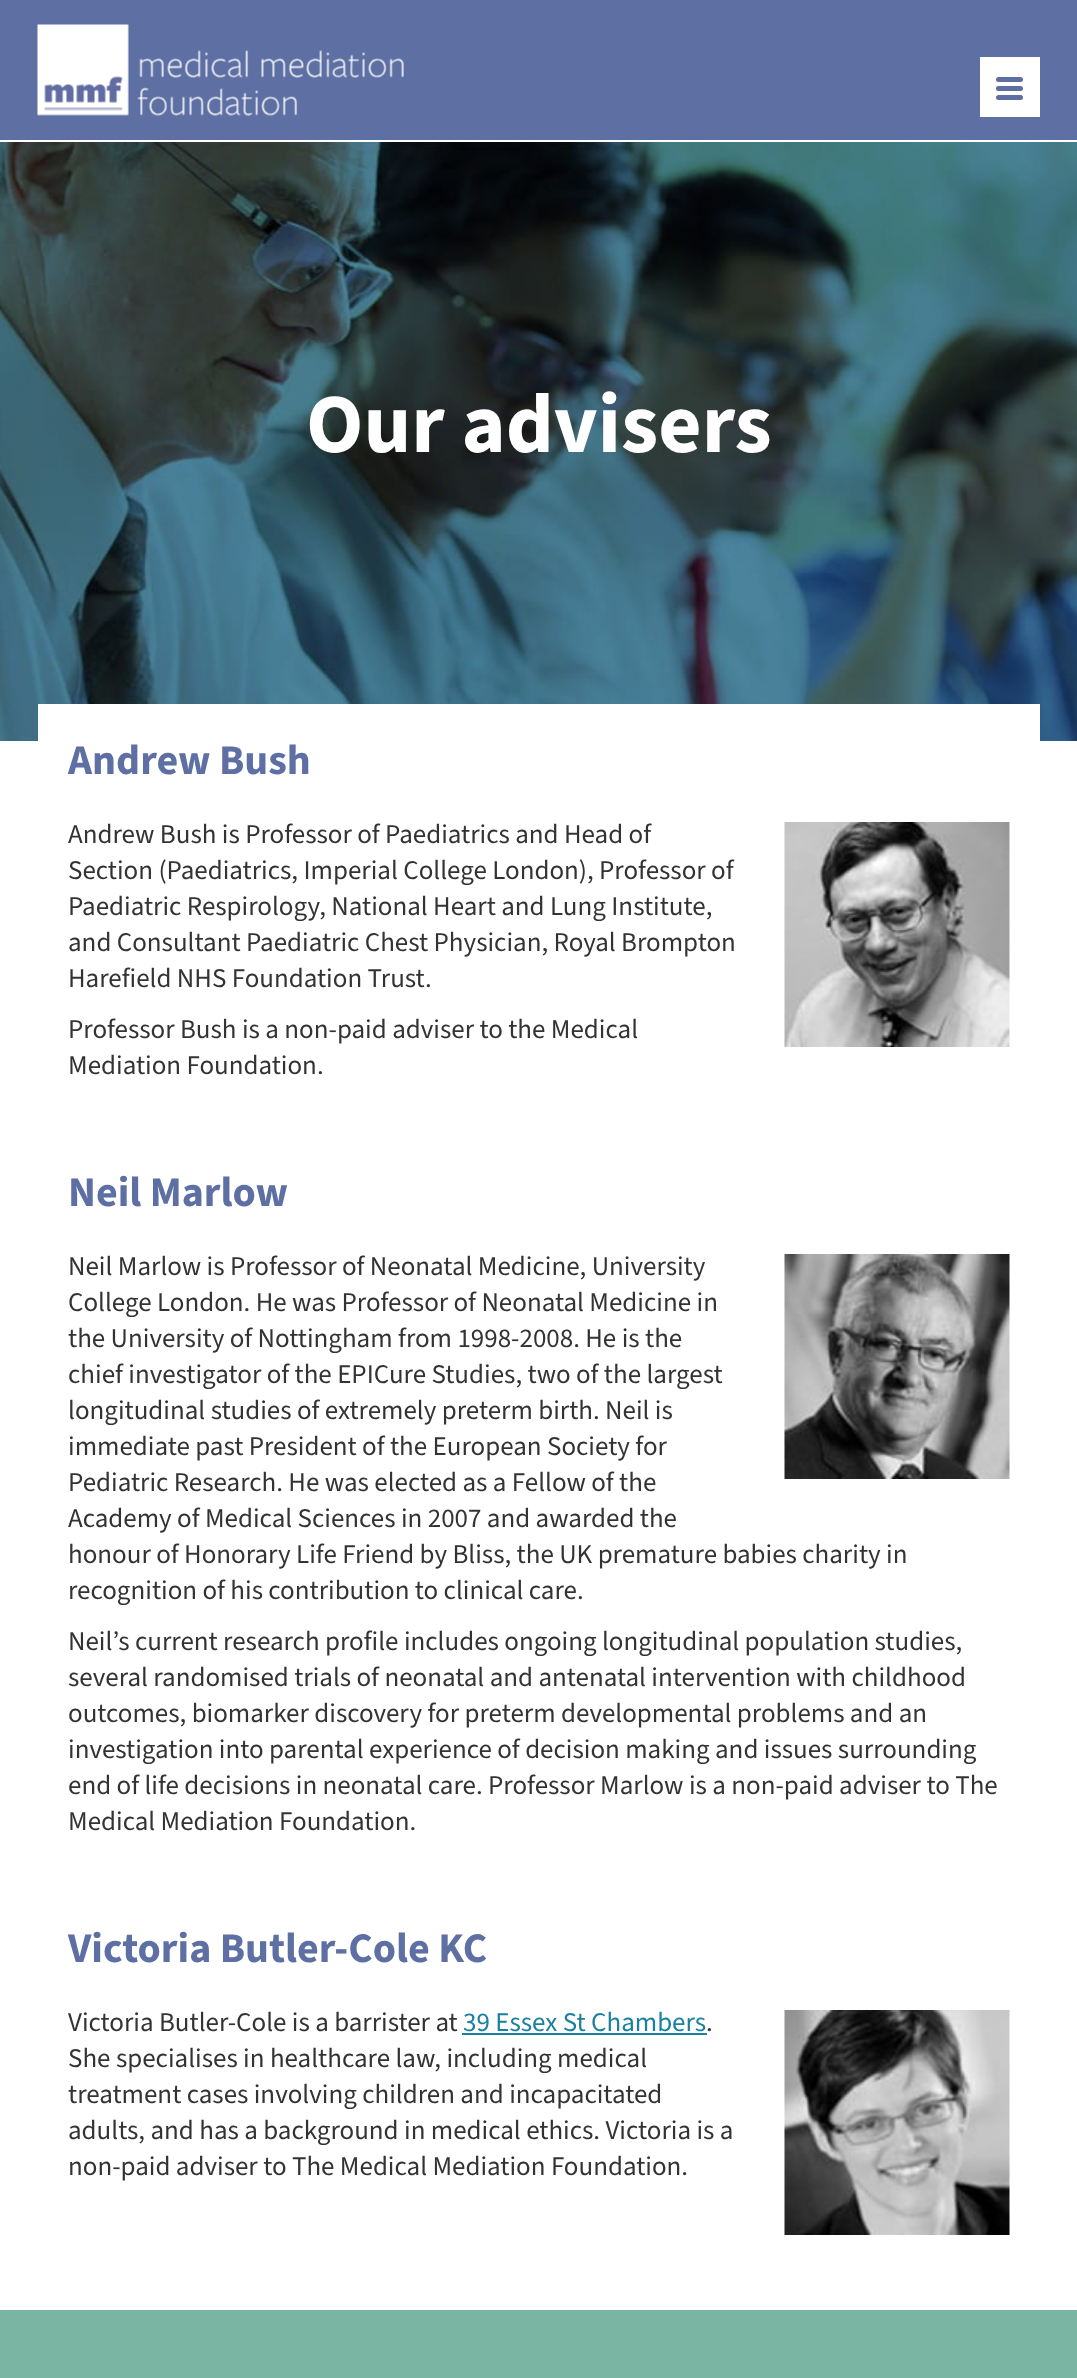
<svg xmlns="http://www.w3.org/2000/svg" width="1077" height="2378">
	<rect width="100%" height="100%" fill="#FFFFFF" />
	<rect x="0" y="0" width="1077" height="140" fill="#5E6FA3" />
	<image x="37" y="24" width="367" height="92" href="assets/img1.png" />
	<rect x="980" y="57" width="60" height="60" fill="#FFFFFF" />
	<rect x="996" y="77" width="27" height="5" rx="2.5" fill="#5E6EA0" />
	<rect x="996" y="86" width="27" height="5" rx="2.5" fill="#5E6EA0" />
	<rect x="996" y="95" width="27" height="5" rx="2.5" fill="#5E6EA0" />
	<image x="0" y="142" width="1077" height="599" href="assets/img2.png" />
	<text x="306" y="452" font-family="'Source Sans 3'" font-size="84" font-weight="700" fill="#FFFFFF">Our advisers</text>
	<rect x="38" y="704" width="1002" height="37" fill="#FFFFFF" />
	<text x="68" y="774" font-family="'Source Sans 3'" font-size="42" font-weight="700" fill="#5E6FA3">Andrew Bush</text>
	<g font-family="'Source Sans 3'" font-size="27" fill="#333333">
		<text x="68" y="843">Andrew Bush is Professor of Paediatrics and Head of</text>
		<text x="68" y="879">Section (Paediatrics, Imperial College London), Professor of</text>
		<text x="68" y="915">Paediatric Respirology, National Heart and Lung Institute,</text>
		<text x="68" y="951">and Consultant Paediatric Chest Physician, Royal Brompton</text>
		<text x="68" y="987">Harefield NHS Foundation Trust.</text>
	</g>
	<image x="784" y="822" width="226" height="225" href="assets/img3.png" />
	<g font-family="'Source Sans 3'" font-size="27" fill="#333333">
		<text x="68" y="1038">Professor Bush is a non-paid adviser to the Medical</text>
		<text x="68" y="1074">Mediation Foundation.</text>
	</g>
	<text x="68" y="1206" font-family="'Source Sans 3'" font-size="42" font-weight="700" fill="#5E6FA3">Neil Marlow</text>
	<image x="784" y="1254" width="226" height="225" href="assets/img4.png" />
	<g font-family="'Source Sans 3'" font-size="27" fill="#333333">
		<text x="68" y="1275">Neil Marlow is Professor of Neonatal Medicine, University</text>
		<text x="68" y="1311">College London. He was Professor of Neonatal Medicine in</text>
		<text x="68" y="1347">the University of Nottingham from 1998-2008. He is the</text>
		<text x="68" y="1383">chief investigator of the EPICure Studies, two of the largest</text>
		<text x="68" y="1419">longitudinal studies of extremely preterm birth. Neil is</text>
		<text x="68" y="1455">immediate past President of the European Society for</text>
		<text x="68" y="1491">Pediatric Research. He was elected as a Fellow of the</text>
		<text x="68" y="1527">Academy of Medical Sciences in 2007 and awarded the</text>
		<text x="68" y="1563">honour of Honorary Life Friend by Bliss, the UK premature babies charity in</text>
		<text x="68" y="1599">recognition of his contribution to clinical care.</text>
		<text x="68" y="1650">Neil’s current research profile includes ongoing longitudinal population studies,</text>
		<text x="68" y="1686">several randomised trials of neonatal and antenatal intervention with childhood</text>
		<text x="68" y="1722">outcomes, biomarker discovery for preterm developmental problems and an</text>
		<text x="68" y="1758">investigation into parental experience of decision making and issues surrounding</text>
		<text x="68" y="1794">end of life decisions in neonatal care. Professor Marlow is a non-paid adviser to The</text>
		<text x="68" y="1830">Medical Mediation Foundation.</text>
	</g>
	<text x="68" y="1962" font-family="'Source Sans 3'" font-size="42" font-weight="700" fill="#5E6FA3">Victoria Butler-Cole KC</text>
	<text x="68" y="2031" font-family="'Source Sans 3'" font-size="27" fill="#333333">Victoria Butler-Cole is a barrister at</text>
	<text x="463" y="2031" font-family="'Source Sans 3'" font-size="27" fill="#1980A0">39 Essex St Chambers</text>
	<rect x="462" y="2033" width="245" height="2" fill="#1980A0" />
	<g font-family="'Source Sans 3'" font-size="27" fill="#333333">
		<text x="706" y="2031">.</text>
		<text x="68" y="2067">She specialises in healthcare law, including medical</text>
		<text x="68" y="2103">treatment cases involving children and incapacitated</text>
		<text x="68" y="2139">adults, and has a background in medical ethics. Victoria is a</text>
		<text x="68" y="2175">non-paid adviser to The Medical Mediation Foundation.</text>
	</g>
	<image x="784" y="2010" width="226" height="225" href="assets/img5.png" />
	<rect x="0" y="2310" width="1077" height="68" fill="#7AB5A4" />
</svg>
